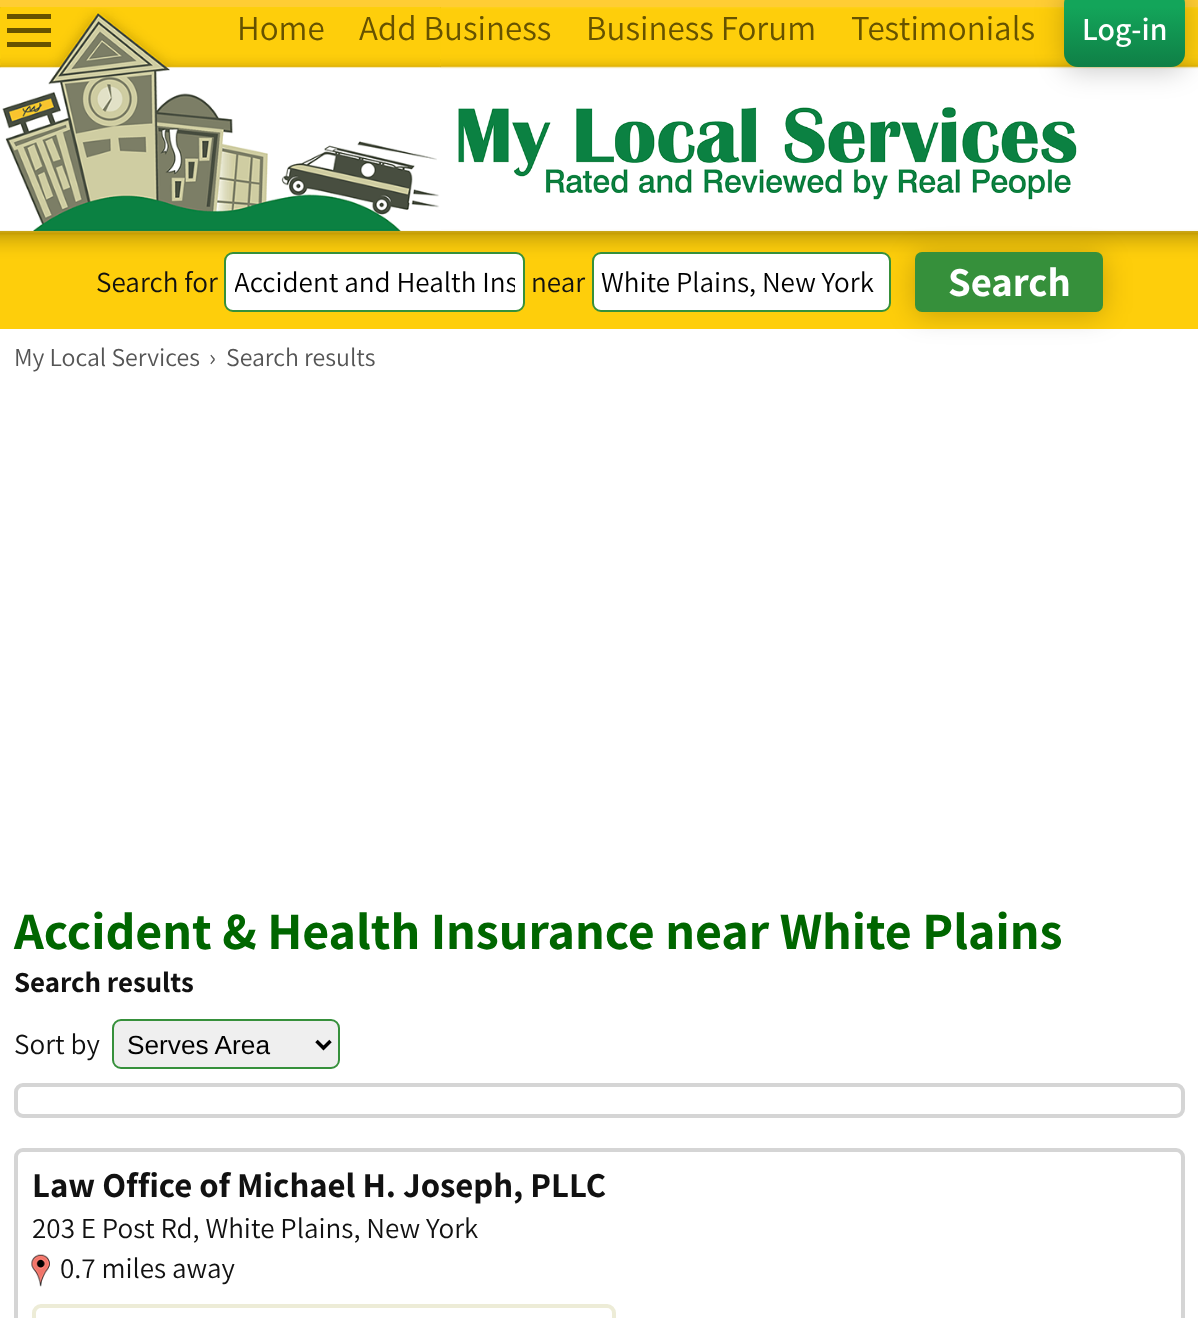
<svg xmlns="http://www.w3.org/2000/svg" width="1198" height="1318">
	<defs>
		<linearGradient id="g1" gradientUnits="userSpaceOnUse" x1="1124" y1="-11" x2="1124" y2="67"><stop offset="0" stop-color="#13A55A" /><stop offset="0.23" stop-color="#13A55A" /><stop offset="1" stop-color="#0F7F46" /></linearGradient>
		<clipPath id="clip1"><rect x="235" y="263" width="280" height="38" /></clipPath>
	</defs>
	<rect width="100%" height="100%" fill="#FFFFFF" />
	<rect x="0" y="0" width="1198" height="7" fill="#FFCD34" />
	<image x="0" y="7" width="1198" height="224" href="assets/img1.png" />
	<image x="0" y="7" width="441" height="224" href="assets/img2.png" />
	<rect x="7" y="14" width="44" height="5" fill="#665200" />
	<rect x="7" y="28" width="44" height="5" fill="#665200" />
	<rect x="7" y="42" width="44" height="5" fill="#665200" />
	<image x="458" y="107" width="619" height="93" href="assets/img3.png" />
	<g font-family="Assistant" font-size="35" fill="#665200">
		<text x="237" y="40">Home</text>
		<text x="359" y="40">Add Business</text>
		<text x="586" y="40">Business Forum</text>
	</g>
	<rect x="1064" y="-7" width="121" height="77" rx="14" fill="#000000" fill-opacity="0.22" filter="blur(14px)" />
	<text x="851" y="40" font-family="Assistant" font-size="35" fill="#665200">Testimonials</text>
	<rect x="1064" y="-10" width="121" height="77" rx="14" fill="url(#g1)" />
	<text x="1082" y="40" font-family="Assistant" font-size="32" font-weight="600" fill="#FFFFFF">Log-in</text>
	<image x="0" y="231" width="1198" height="98" href="assets/img4.png" />
	<text x="96" y="292" font-family="Assistant" font-size="29.1" fill="#111111">Search for</text>
	<rect x="225" y="253" width="299" height="58" rx="8" fill="#FFFFFF" stroke="#36903B" stroke-width="2" />
	<g clip-path="url(#clip1)">
		<text x="234" y="292" font-family="Assistant" font-size="29.1" fill="#000000">Accident and Health Ins</text>
	</g>
	<text x="531" y="292" font-family="Assistant" font-size="29.1" fill="#111111">near</text>
	<rect x="593" y="253" width="297" height="58" rx="8" fill="#FFFFFF" stroke="#36903B" stroke-width="2" />
	<text x="601" y="292" font-family="Assistant" font-size="29.1" fill="#000000">White Plains, New York</text>
	<rect x="915" y="256" width="188" height="59" rx="7" fill="#000000" fill-opacity="0.22" filter="blur(14px)" />
	<rect x="916" y="253" width="186" height="58" rx="6" fill="#36903B" stroke="#36903B" stroke-width="2" />
	<text x="948" y="296" font-family="Assistant" font-size="41" font-weight="700" fill="#FFFFFF">Search</text>
	<g font-family="Assistant" font-size="25.75" fill="#555555">
		<text x="14" y="366">My Local Services</text>
		<text x="209" y="366">›</text>
		<text x="226" y="366">Search results</text>
	</g>
	<text x="14" y="949" font-family="Assistant" font-size="52.4" font-weight="700" fill="#006600">Accident &amp; Health Insurance near White Plains</text>
	<text x="14" y="992" font-family="Assistant" font-size="29.1" font-weight="700" fill="#111111">Search results</text>
	<text x="14" y="1054" font-family="Assistant" font-size="29.1" fill="#111111">Sort by</text>
	<rect x="113" y="1020" width="226" height="48" rx="8" fill="#EFEFEF" stroke="#36903B" stroke-width="2" />
	<path d="M316.5 1041L323.5 1048L330.5 1041" fill="none" stroke="#000000" stroke-width="3.5" />
	<text x="127" y="1054" font-family="Liberation Sans" font-size="26.25" fill="#000000">Serves Area</text>
	<rect x="16" y="1085" width="1167" height="31" rx="7" fill="none" stroke="#D5D5D5" stroke-width="4" />
	<rect x="16" y="1150" width="1167" height="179" rx="7" fill="none" stroke="#D5D5D5" stroke-width="4" />
	<text x="32" y="1197" font-family="Assistant" font-size="35" font-weight="700" fill="#111111">Law Office of Michael H. Joseph, PLLC</text>
	<text x="32" y="1238" font-family="Assistant" font-size="29.1" fill="#111111">203 E Post Rd, White Plains, New York</text>
	<image x="31" y="1254" width="19" height="33" href="assets/img5.png" />
	<text x="60" y="1278" font-family="Assistant" font-size="29.1" fill="#111111">0.7 miles away</text>
	<rect x="34" y="1306" width="580" height="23" rx="7" fill="none" stroke="#EDECD7" stroke-width="4" />
</svg>
